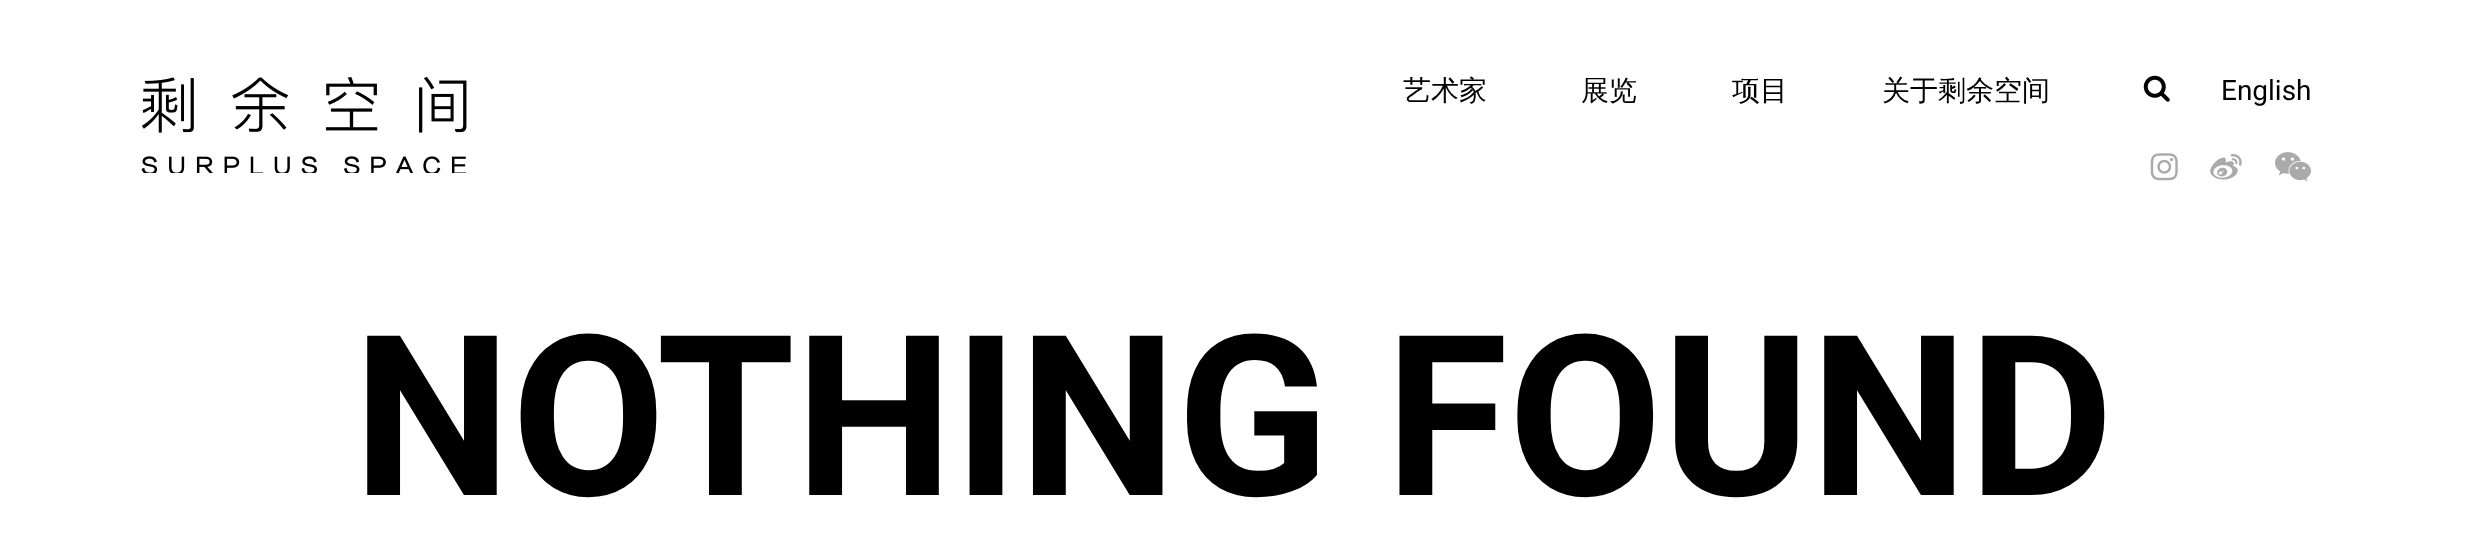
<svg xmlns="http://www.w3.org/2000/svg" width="2465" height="544">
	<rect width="100%" height="100%" fill="#FFFFFF" />
	<image x="141" y="77" width="326" height="96" href="assets/img1.png" />
	<g font-family="WenQuanYi Zen Hei" font-size="28" font-weight="500" fill="#000000">
		<text x="1403" y="100">艺术家</text>
		<text x="1581" y="100">展览</text>
		<text x="1732" y="100">项目</text>
		<text x="1882" y="100">关于剩余空间</text>
	</g>
	<image x="2143" y="75" width="27" height="27" href="assets/img2.png" />
	<text x="2221" y="100" font-family="Roboto" font-size="28" fill="#000000">English</text>
	<image x="2150" y="153" width="28" height="28" href="assets/img3.png" />
	<image x="2210" y="154" width="32" height="26" href="assets/img4.png" />
	<image x="2275" y="152" width="36" height="30" href="assets/img5.png" />
	<text x="353" y="495" font-family="Roboto" font-size="224" font-weight="700" fill="#000000">NOTHING FOUND</text>
</svg>
